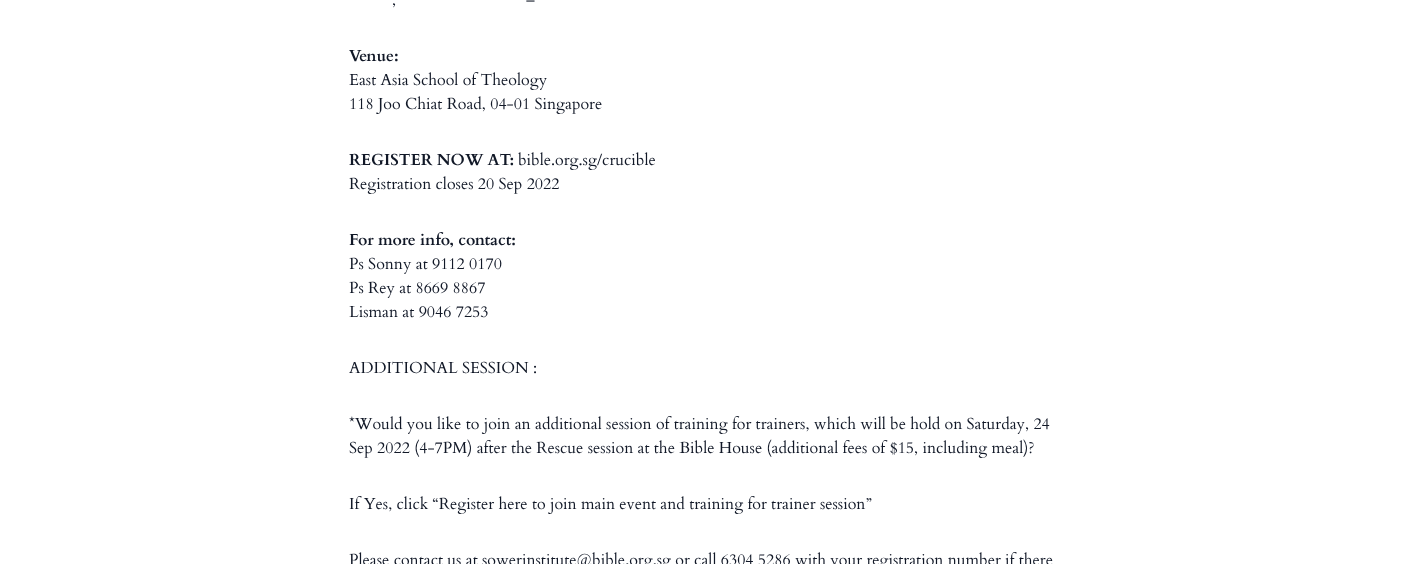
<svg xmlns="http://www.w3.org/2000/svg" width="1401" height="564">
	<rect width="100%" height="100%" fill="#FFFFFF" />
	<g font-family="Cardo" font-size="16" fill="#111827">
		<text x="526" y="5">–</text>
		<text x="392" y="5">,</text>
	</g>
	<text x="349" y="61" font-family="Cardo" font-size="16" font-weight="700" fill="#111827">Venue:</text>
	<g font-family="Cardo" font-size="16" fill="#111827">
		<text x="349" y="85">East Asia School of Theology</text>
		<text x="349" y="109">118 Joo Chiat Road, 04-01 Singapore</text>
	</g>
	<text x="349" y="165" font-family="Cardo" font-size="16" font-weight="700" fill="#111827">REGISTER NOW AT:</text>
	<g font-family="Cardo" font-size="16" fill="#111827">
		<text x="518" y="165">bible.org.sg/crucible</text>
		<text x="349" y="189">Registration closes 20 Sep 2022</text>
	</g>
	<text x="349" y="245" font-family="Cardo" font-size="16" font-weight="700" fill="#111827">For more info, contact:</text>
	<g font-family="Cardo" font-size="16" fill="#111827">
		<text x="349" y="269">Ps Sonny at 9112 0170</text>
		<text x="349" y="293">Ps Rey at 8669 8867</text>
		<text x="349" y="317">Lisman at 9046 7253</text>
		<text x="349" y="373">ADDITIONAL SESSION :</text>
		<text x="349" y="429">*Would you like to join an additional session of training for trainers, which will be hold on Saturday, 24</text>
		<text x="349" y="453">Sep 2022 (4-7PM) after the Rescue session at the Bible House (additional fees of $15, including meal)?</text>
		<text x="349" y="509">If Yes, click “Register here to join main event and training for trainer session”</text>
		<text x="349" y="565">Please contact us at sowerinstitute@bible.org.sg or call 6304 5286 with your registration number if there</text>
	</g>
</svg>
